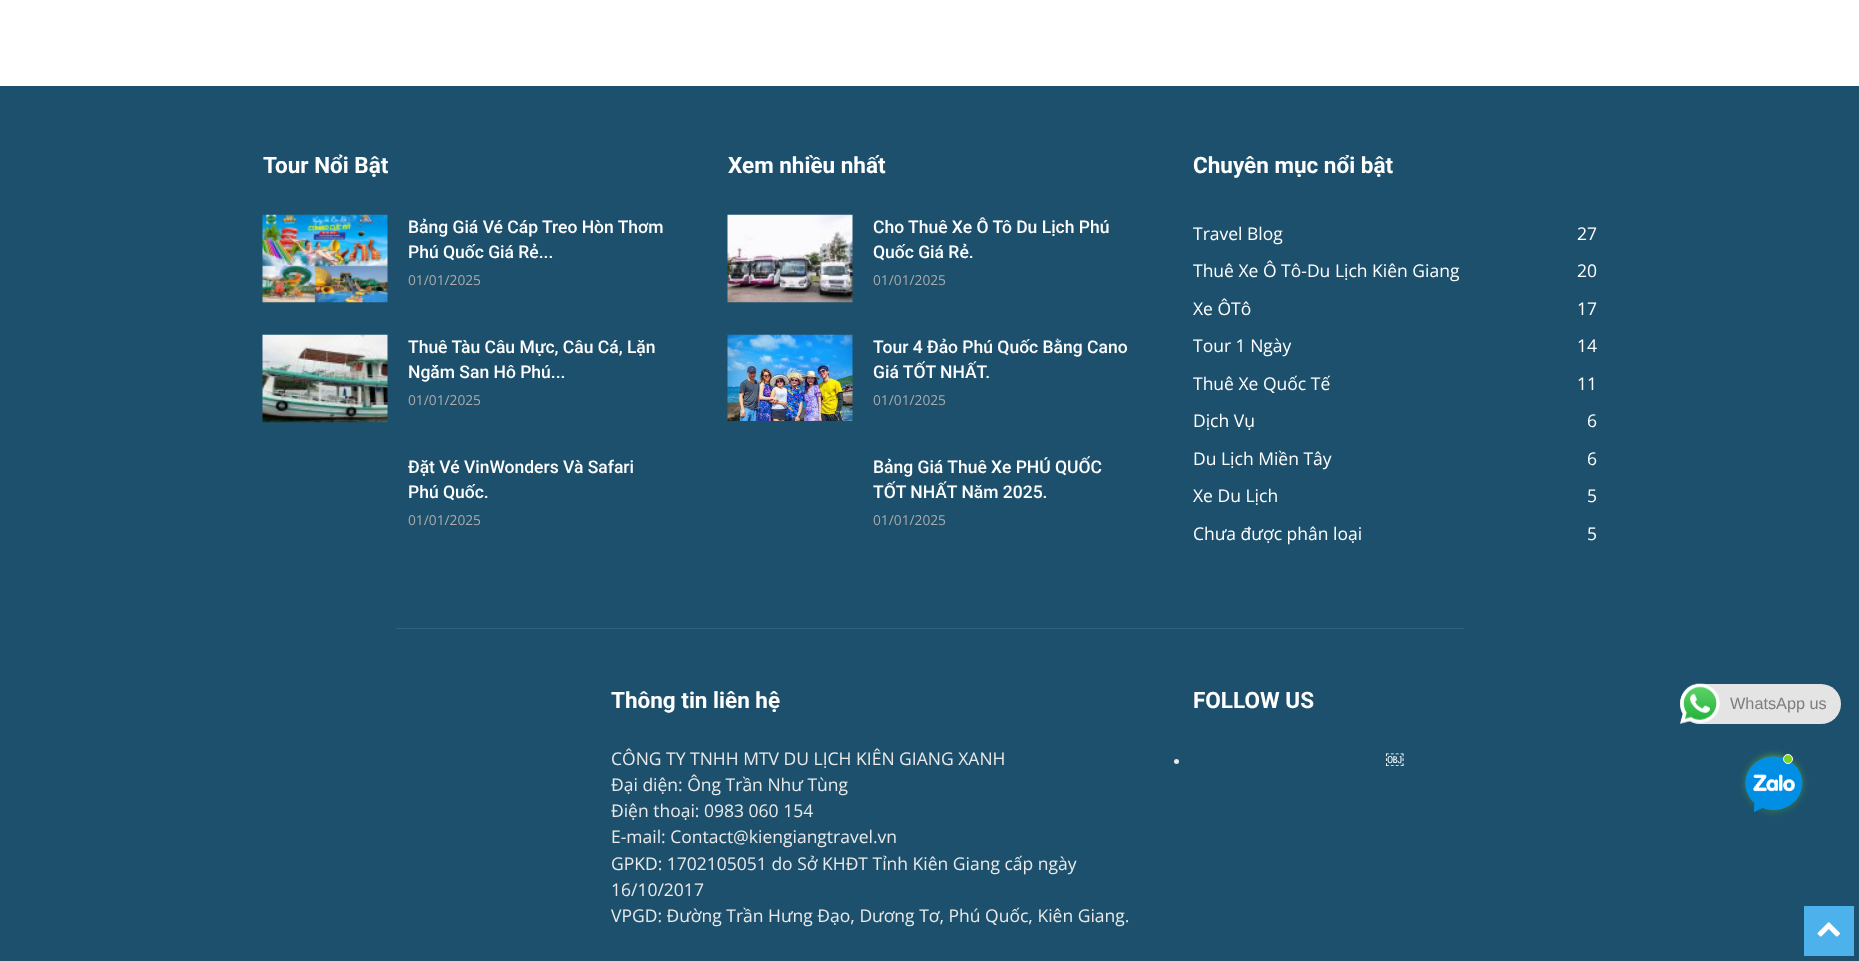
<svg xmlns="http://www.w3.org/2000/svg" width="1859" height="961">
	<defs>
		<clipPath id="clip1"><rect x="1193" y="155" width="405" height="398" /></clipPath>
	</defs>
	<rect width="100%" height="100%" fill="#FFFFFF" />
	<rect x="0" y="86" width="1859" height="875" fill="#1D506D" />
	<text x="263" y="173" font-family="Roboto" font-size="22.5" font-weight="700" fill="#FFFFFF">Tour Nổi Bật</text>
	<image x="262" y="214" width="126" height="89" href="assets/img1.png" />
	<g font-family="Roboto" font-size="17.5" font-weight="500" fill="#FFFFFF">
		<text x="408" y="233">Bảng Giá Vé Cáp Treo Hòn Thơm</text>
		<text x="408" y="258">Phú Quốc Giá Rẻ...</text>
	</g>
	<text x="408" y="285" font-family="Open Sans" font-size="13.75" fill="#AAAAAA">01/01/2025</text>
	<image x="262" y="334" width="126" height="89" href="assets/img2.png" />
	<g font-family="Roboto" font-size="17.5" font-weight="500" fill="#FFFFFF">
		<text x="408" y="353">Thuê Tàu Câu Mực, Câu Cá, Lặn</text>
		<text x="408" y="378">Ngắm San Hô Phú...</text>
	</g>
	<text x="408" y="405" font-family="Open Sans" font-size="13.75" fill="#AAAAAA">01/01/2025</text>
	<g font-family="Roboto" font-size="17.5" font-weight="500" fill="#FFFFFF">
		<text x="408" y="473">Đặt Vé VinWonders Và Safari</text>
		<text x="408" y="498">Phú Quốc.</text>
	</g>
	<text x="408" y="525" font-family="Open Sans" font-size="13.75" fill="#AAAAAA">01/01/2025</text>
	<text x="728" y="173" font-family="Roboto" font-size="22.5" font-weight="700" fill="#FFFFFF">Xem nhiều nhất</text>
	<image x="727" y="214" width="126" height="89" href="assets/img3.png" />
	<g font-family="Roboto" font-size="17.5" font-weight="500" fill="#FFFFFF">
		<text x="873" y="233">Cho Thuê Xe Ô Tô Du Lịch Phú</text>
		<text x="873" y="258">Quốc Giá Rẻ.</text>
	</g>
	<text x="873" y="285" font-family="Open Sans" font-size="13.75" fill="#AAAAAA">01/01/2025</text>
	<image x="727" y="334" width="126" height="87" href="assets/img4.png" />
	<g font-family="Roboto" font-size="17.5" font-weight="500" fill="#FFFFFF">
		<text x="873" y="353">Tour 4 Đảo Phú Quốc Bằng Cano</text>
		<text x="873" y="378">Giá TỐT NHẤT.</text>
	</g>
	<text x="873" y="405" font-family="Open Sans" font-size="13.75" fill="#AAAAAA">01/01/2025</text>
	<g font-family="Roboto" font-size="17.5" font-weight="500" fill="#FFFFFF">
		<text x="873" y="473">Bảng Giá Thuê Xe PHÚ QUỐC</text>
		<text x="873" y="498">TỐT NHẤT Năm 2025.</text>
	</g>
	<text x="873" y="525" font-family="Open Sans" font-size="13.75" fill="#AAAAAA">01/01/2025</text>
	<g clip-path="url(#clip1)">
		<text x="1193" y="173" font-family="Roboto" font-size="22.5" font-weight="700" fill="#FFFFFF">Chuyên mục nổi bật</text>
	</g>
	<g font-family="Open Sans" font-size="17.5" fill="#FFFFFF">
		<text x="1193" y="240">Travel Blog</text>
		<text x="1577" y="240">27</text>
		<text x="1193" y="277">Thuê Xe Ô Tô-Du Lịch Kiên Giang</text>
		<text x="1577" y="277">20</text>
		<text x="1193" y="315">Xe ÔTô</text>
		<text x="1577" y="315">17</text>
		<text x="1193" y="352">Tour 1 Ngày</text>
		<text x="1577" y="352">14</text>
		<text x="1193" y="390">Thuê Xe Quốc Tế</text>
		<text x="1577" y="390">11</text>
		<text x="1193" y="427">Dịch Vụ</text>
		<text x="1587" y="427">6</text>
		<text x="1193" y="465">Du Lịch Miền Tây</text>
		<text x="1587" y="465">6</text>
		<text x="1193" y="502">Xe Du Lịch</text>
		<text x="1587" y="502">5</text>
		<text x="1193" y="540">Chưa được phân loại</text>
		<text x="1587" y="540">5</text>
	</g>
	<rect x="396" y="628" width="1068" height="1" fill="#34627C" />
	<text x="611" y="708" font-family="Roboto" font-size="22.5" font-weight="700" fill="#FFFFFF">Thông tin liên hệ</text>
	<g font-family="Open Sans" font-size="17.5" fill="#EAEAEA">
		<text x="611" y="765">CÔNG TY TNHH MTV DU LỊCH KIÊN GIANG XANH</text>
		<text x="611" y="791">Đại diện: Ông Trần Như Tùng</text>
		<text x="611" y="817">Điện thoại: 0983 060 154</text>
		<text x="611" y="843">E-mail: Contact@kiengiangtravel.vn</text>
		<text x="611" y="870">GPKD: 1702105051 do Sở KHĐT Tỉnh Kiên Giang cấp ngày</text>
		<text x="611" y="896">16/10/2017</text>
		<text x="611" y="922">VPGD: Đường Trần Hưng Đạo, Dương Tơ, Phú Quốc, Kiên Giang.</text>
	</g>
	<text x="1193" y="708" font-family="Roboto" font-size="22.5" font-weight="700" fill="#FFFFFF">FOLLOW US</text>
	<circle cx="1176.5" cy="761.5" r="2.5" fill="#EAEAEA" />
	<text x="1386" y="766" font-family="Liberation Sans" font-size="17.5" fill="#FFFFFF">￼</text>
	<rect x="1680" y="684" width="161" height="40" rx="20" fill="#E4E4E4" />
	<image x="1680" y="683" width="40" height="41" href="assets/img5.png" />
	<text x="1730" y="709" font-family="Liberation Sans" font-size="16.25" fill="#7F7D7D">WhatsApp us</text>
	<rect x="1749" y="758" width="50" height="50" rx="25" fill="#7ED321" filter="blur(5px)" />
	<image x="1745" y="756" width="58" height="58" href="assets/img6.png" />
	<circle cx="1788" cy="759" r="4.5" fill="#7ED321" stroke="#FFFFFF" />
	<rect x="1804" y="906" width="50" height="50" fill="#4DB2EC" />
	<image x="1817" y="922" width="23" height="15" href="assets/img7.png" />
</svg>
